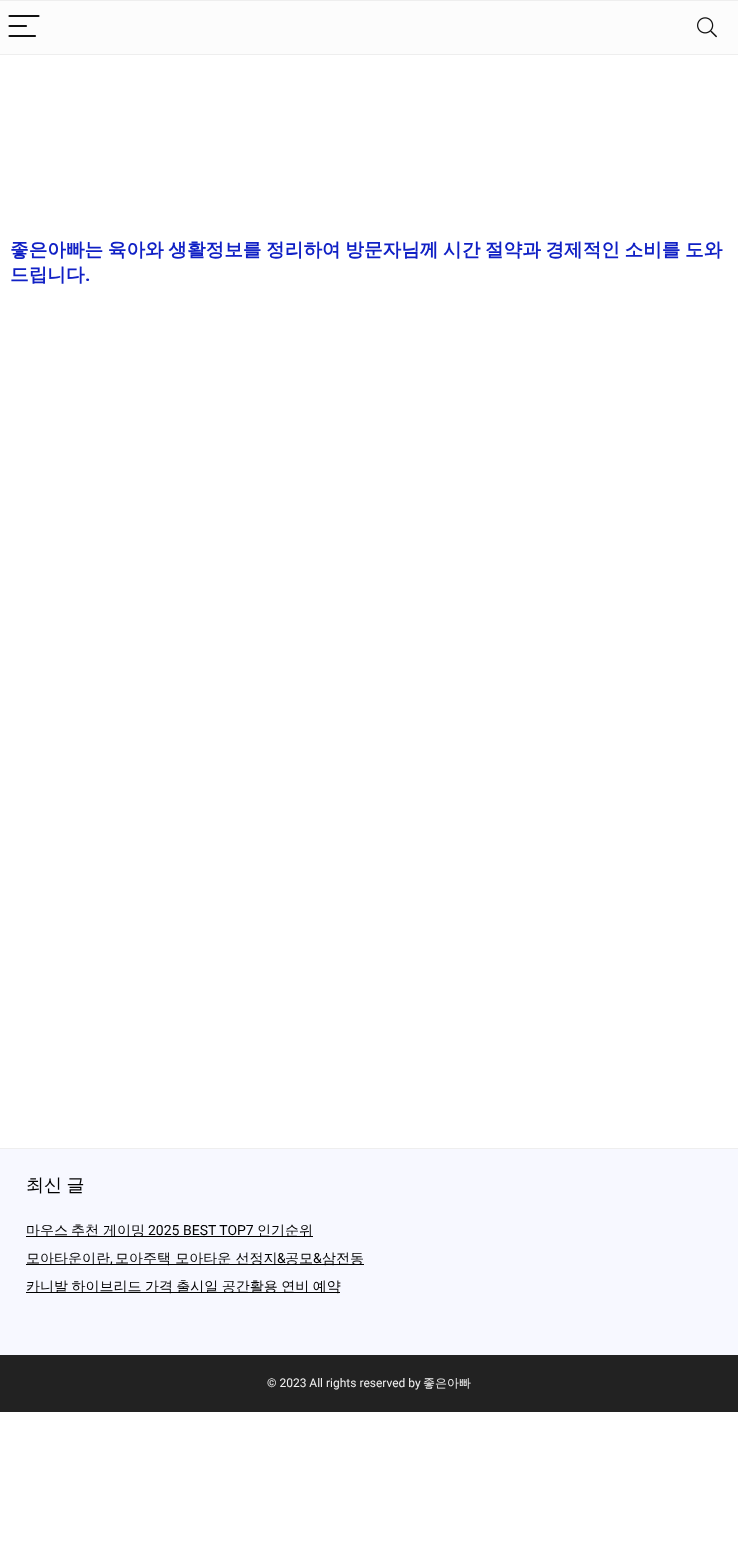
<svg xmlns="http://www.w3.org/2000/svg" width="738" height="1561">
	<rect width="100%" height="100%" fill="#FFFFFF" />
	<rect x="0" y="1" width="738" height="53" fill="#FCFCFC" />
	<rect x="0" y="0" width="738" height="1" fill="#EEEEEE" />
	<rect x="0" y="54" width="738" height="1" fill="#EEEEEE" />
	<path d="M9.5 16H38.5M9.5 26H26M9.5 36H35" fill="none" stroke="#111111" stroke-width="2.2" stroke-linecap="round" />
	<image x="697" y="17" width="20" height="21" href="assets/img1.png" />
	<g font-family="WenQuanYi Zen Hei" font-size="18.65" font-weight="700" fill="#1020C5">
		<text x="10" y="256" word-spacing="-1">좋은아빠는 육아와 생활정보를 정리하여 방문자님께 시간 절약과 경제적인 소비를 도와</text>
		<text x="10" y="281">드립니다</text>
	</g>
	<text x="85" y="281" font-family="Roboto" font-size="18.65" font-weight="700" fill="#1020C5">.</text>
	<rect x="0" y="1149" width="738" height="206" fill="#F7F8FF" />
	<rect x="0" y="1148" width="738" height="1" fill="#EEEEEE" />
	<text x="26" y="1191" word-spacing="-1" font-family="WenQuanYi Zen Hei" font-size="18" font-weight="500" fill="#000000">최신 글</text>
	<rect x="26" y="1236" width="287" height="1" fill="#000000" />
	<g font-family="WenQuanYi Zen Hei" font-size="14" font-weight="500" fill="#000000">
		<text x="26" y="1235">마우스</text>
		<text x="71" y="1235">추천</text>
		<text x="103" y="1235">게이밍</text>
	</g>
	<text x="148" y="1235" font-family="Roboto" font-size="14" fill="#000000">2025 BEST TOP7</text>
	<text x="257" y="1235" font-family="WenQuanYi Zen Hei" font-size="14" font-weight="500" fill="#000000">인기순위</text>
	<rect x="26" y="1264" width="338" height="1" fill="#000000" />
	<text x="26" y="1263" font-family="WenQuanYi Zen Hei" font-size="14" font-weight="500" fill="#000000">모아타운이란</text>
	<text x="110" y="1263" font-family="Roboto" font-size="14" fill="#000000">,</text>
	<text x="115" y="1263" font-family="WenQuanYi Zen Hei" font-size="14" font-weight="500" fill="#000000">모아주택 모아타운 선정지</text>
	<text x="277" y="1263" font-family="Roboto" font-size="14" fill="#000000">&amp;</text>
	<text x="285" y="1263" font-family="WenQuanYi Zen Hei" font-size="14" font-weight="500" fill="#000000">공모</text>
	<text x="313" y="1263" font-family="Roboto" font-size="14" fill="#000000">&amp;</text>
	<text x="322" y="1263" font-family="WenQuanYi Zen Hei" font-size="14" font-weight="500" fill="#000000">삼전동</text>
	<rect x="26" y="1292" width="314" height="1" fill="#000000" />
	<text x="26" y="1291" word-spacing="-0.75" font-family="WenQuanYi Zen Hei" font-size="14" font-weight="500" fill="#000000">카니발 하이브리드 가격 출시일 공간활용 연비 예약</text>
	<rect x="0" y="1355" width="738" height="57" fill="#222222" />
	<text x="267" y="1387" font-family="Roboto" font-size="12" fill="#F1F1F1">© 2023 All rights reserved by</text>
	<text x="423" y="1387" font-family="WenQuanYi Zen Hei" font-size="12" font-weight="500" fill="#F1F1F1">좋은아빠</text>
</svg>
